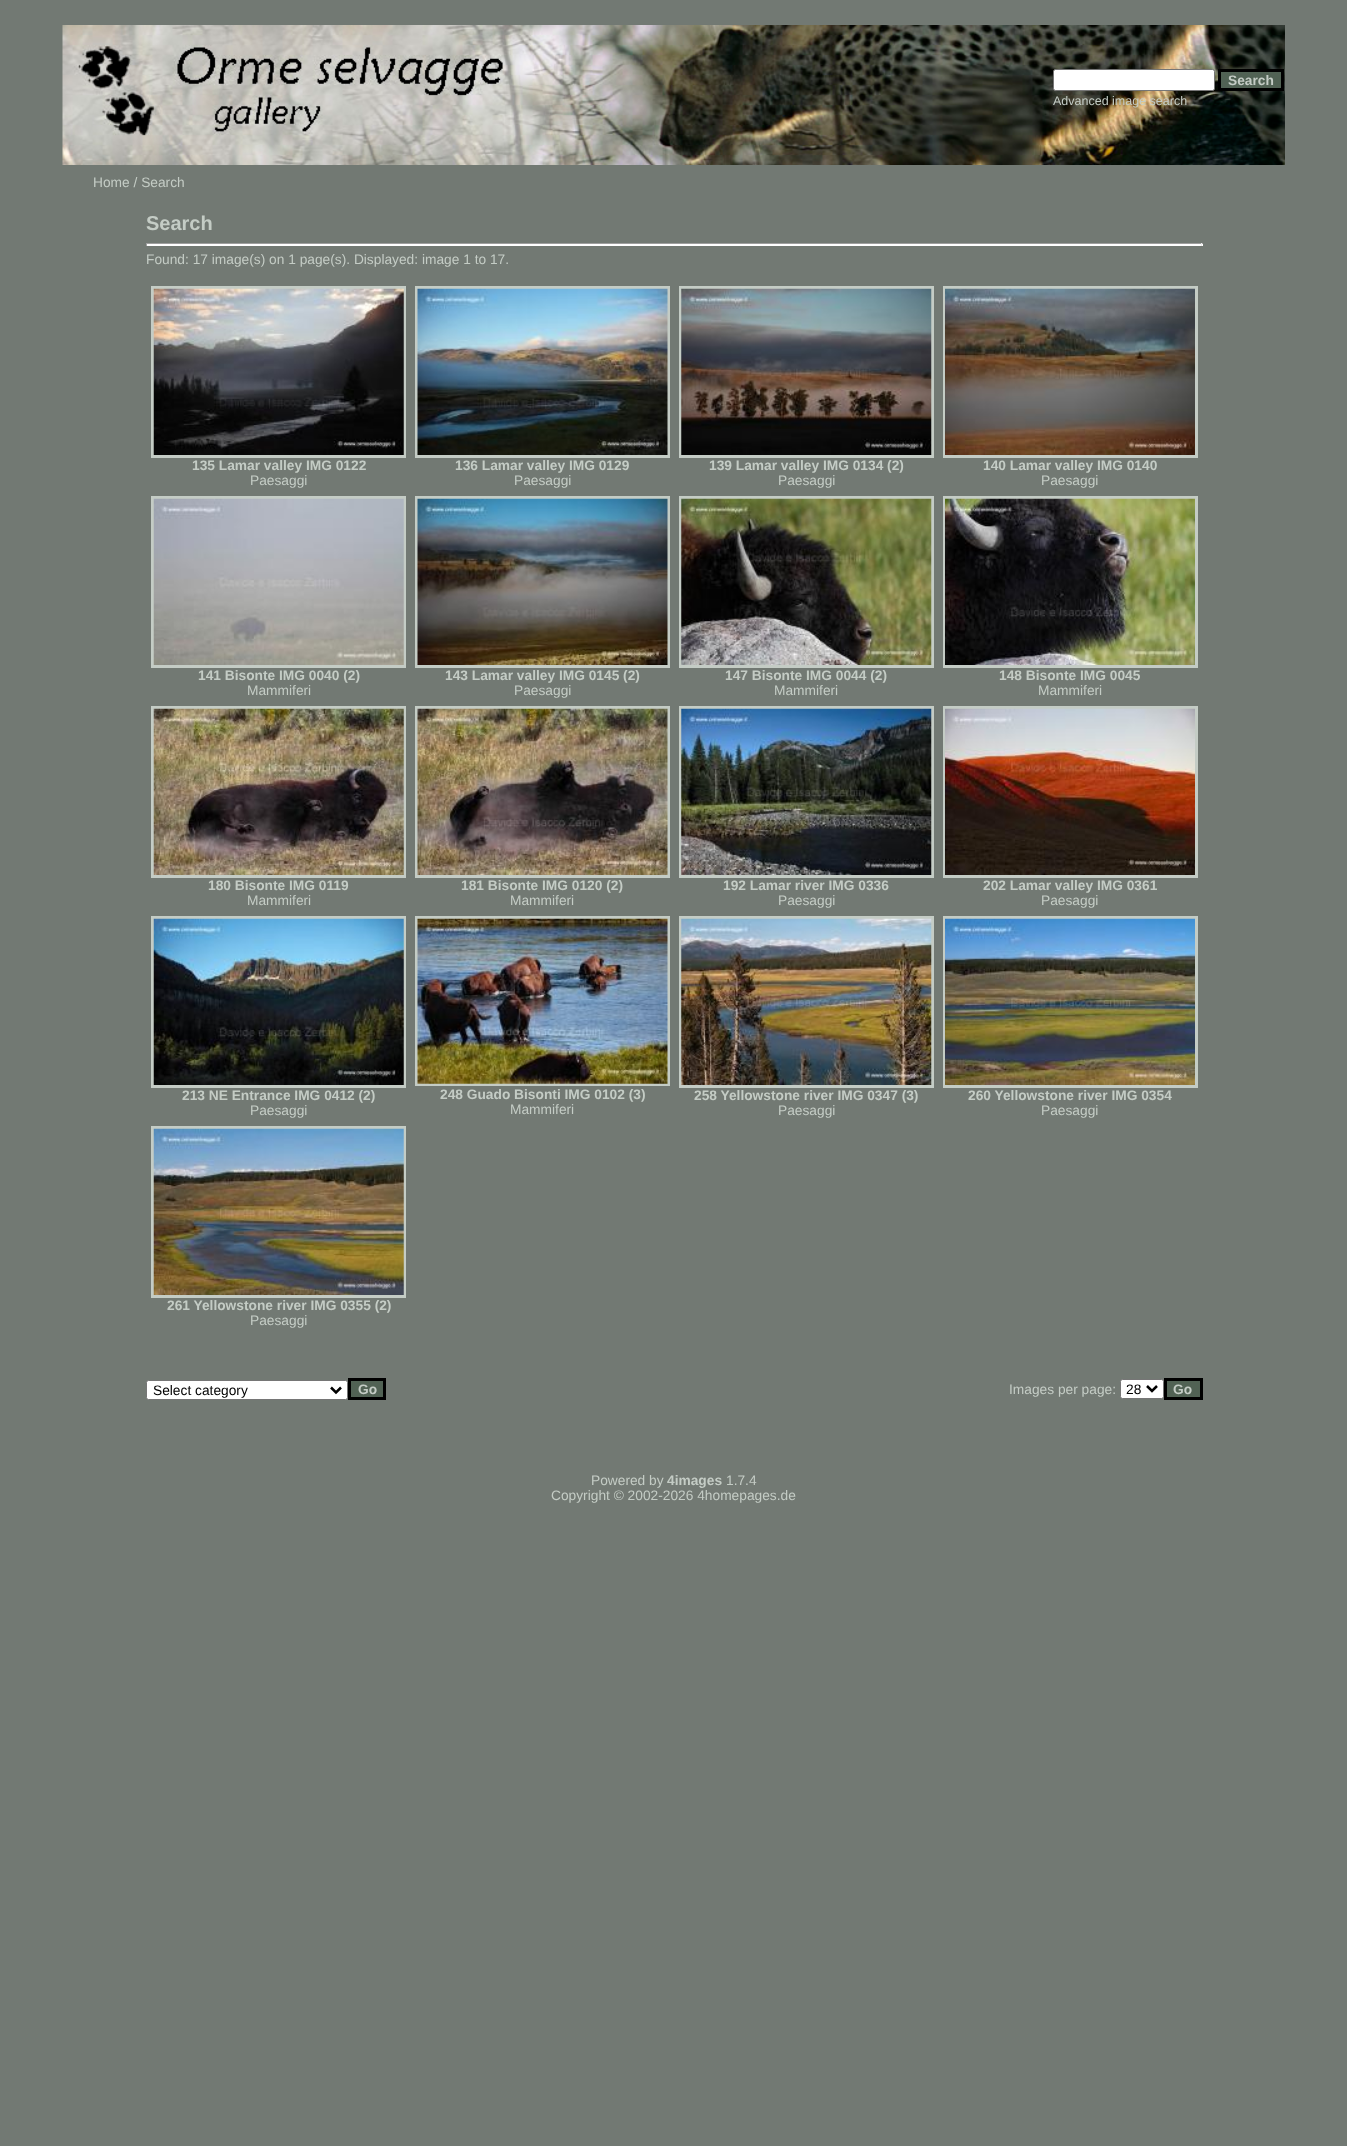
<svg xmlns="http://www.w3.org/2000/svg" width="1347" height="2146">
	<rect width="100%" height="100%" fill="#727973" />
	<image x="62" y="25" width="1223" height="140" href="assets/img1.png" />
	<rect x="1053.5" y="69.5" width="161" height="21" rx="2" fill="#FFFFFF" stroke="#767676" />
	<rect x="1219.5" y="70.5" width="63" height="19" fill="#516254" stroke="#000000" stroke-width="3" />
	<text x="1228" y="85" font-family="Liberation Sans" font-size="13.75" font-weight="700" fill="#C4CCC5">Search</text>
	<text x="1053" y="105" font-family="Liberation Sans" font-size="12.5" fill="#C4CCC5">Advanced image search</text>
	<text x="93" y="187" font-family="Liberation Sans" font-size="13.75" fill="#C4CCC5">Home / Search</text>
	<text x="146" y="230" font-family="Liberation Sans" font-size="20" font-weight="700" fill="#C4CCC5">Search</text>
	<rect x="146" y="244" width="1057" height="2" fill="#FFFFFF" />
	<rect x="146" y="243" width="1057" height="1" fill="#9F9F9F" />
	<rect x="1201" y="243" width="1" height="3" fill="#EEEEEE" />
	<rect x="146" y="243" width="1" height="3" fill="#9F9F9F" />
	<text x="146" y="264" font-family="Liberation Sans" font-size="13.75" fill="#C4CCC5">Found: 17 image(s) on 1 page(s). Displayed: image 1 to 17.</text>
	<rect x="152.5" y="287.5" width="252" height="169" fill="none" stroke="#C4CCC5" stroke-width="3" />
	<image x="153" y="288" width="251" height="167" href="assets/img2.png" />
	<text x="192" y="470" font-family="Liberation Sans" font-size="13.75" font-weight="700" fill="#C4CCC5">135 Lamar valley IMG 0122</text>
	<text x="250" y="485" font-family="Liberation Sans" font-size="13.75" fill="#C4CCC5">Paesaggi</text>
	<rect x="416.5" y="287.5" width="252" height="169" fill="none" stroke="#C4CCC5" stroke-width="3" />
	<image x="417" y="288" width="251" height="167" href="assets/img3.png" />
	<text x="455" y="470" font-family="Liberation Sans" font-size="13.75" font-weight="700" fill="#C4CCC5">136 Lamar valley IMG 0129</text>
	<text x="514" y="485" font-family="Liberation Sans" font-size="13.75" fill="#C4CCC5">Paesaggi</text>
	<rect x="680.5" y="287.5" width="252" height="169" fill="none" stroke="#C4CCC5" stroke-width="3" />
	<image x="681" y="288" width="251" height="167" href="assets/img4.png" />
	<text x="709" y="470" font-family="Liberation Sans" font-size="13.75" font-weight="700" fill="#C4CCC5">139 Lamar valley IMG 0134 (2)</text>
	<text x="778" y="485" font-family="Liberation Sans" font-size="13.75" fill="#C4CCC5">Paesaggi</text>
	<rect x="944.5" y="287.5" width="252" height="169" fill="none" stroke="#C4CCC5" stroke-width="3" />
	<image x="945" y="288" width="250" height="167" href="assets/img5.png" />
	<text x="983" y="470" font-family="Liberation Sans" font-size="13.75" font-weight="700" fill="#C4CCC5">140 Lamar valley IMG 0140</text>
	<text x="1041" y="485" font-family="Liberation Sans" font-size="13.75" fill="#C4CCC5">Paesaggi</text>
	<rect x="152.5" y="497.5" width="252" height="169" fill="none" stroke="#C4CCC5" stroke-width="3" />
	<image x="153" y="498" width="251" height="167" href="assets/img6.png" />
	<text x="198" y="680" font-family="Liberation Sans" font-size="13.75" font-weight="700" fill="#C4CCC5">141 Bisonte IMG 0040 (2)</text>
	<text x="247" y="695" font-family="Liberation Sans" font-size="13.75" fill="#C4CCC5">Mammiferi</text>
	<rect x="416.5" y="497.5" width="252" height="169" fill="none" stroke="#C4CCC5" stroke-width="3" />
	<image x="417" y="498" width="251" height="167" href="assets/img7.png" />
	<text x="445" y="680" font-family="Liberation Sans" font-size="13.75" font-weight="700" fill="#C4CCC5">143 Lamar valley IMG 0145 (2)</text>
	<text x="514" y="695" font-family="Liberation Sans" font-size="13.75" fill="#C4CCC5">Paesaggi</text>
	<rect x="680.5" y="497.5" width="252" height="169" fill="none" stroke="#C4CCC5" stroke-width="3" />
	<image x="681" y="498" width="251" height="167" href="assets/img8.png" />
	<text x="725" y="680" font-family="Liberation Sans" font-size="13.75" font-weight="700" fill="#C4CCC5">147 Bisonte IMG 0044 (2)</text>
	<text x="774" y="695" font-family="Liberation Sans" font-size="13.75" fill="#C4CCC5">Mammiferi</text>
	<rect x="944.5" y="497.5" width="252" height="169" fill="none" stroke="#C4CCC5" stroke-width="3" />
	<image x="945" y="498" width="250" height="167" href="assets/img9.png" />
	<text x="999" y="680" font-family="Liberation Sans" font-size="13.75" font-weight="700" fill="#C4CCC5">148 Bisonte IMG 0045</text>
	<text x="1038" y="695" font-family="Liberation Sans" font-size="13.75" fill="#C4CCC5">Mammiferi</text>
	<rect x="152.5" y="707.5" width="252" height="169" fill="none" stroke="#C4CCC5" stroke-width="3" />
	<image x="153" y="708" width="251" height="167" href="assets/img10.png" />
	<text x="208" y="890" font-family="Liberation Sans" font-size="13.75" font-weight="700" fill="#C4CCC5">180 Bisonte IMG 0119</text>
	<text x="247" y="905" font-family="Liberation Sans" font-size="13.75" fill="#C4CCC5">Mammiferi</text>
	<rect x="416.5" y="707.5" width="252" height="169" fill="none" stroke="#C4CCC5" stroke-width="3" />
	<image x="417" y="708" width="251" height="167" href="assets/img11.png" />
	<text x="461" y="890" font-family="Liberation Sans" font-size="13.75" font-weight="700" fill="#C4CCC5">181 Bisonte IMG 0120 (2)</text>
	<text x="510" y="905" font-family="Liberation Sans" font-size="13.75" fill="#C4CCC5">Mammiferi</text>
	<rect x="680.5" y="707.5" width="252" height="169" fill="none" stroke="#C4CCC5" stroke-width="3" />
	<image x="681" y="708" width="251" height="167" href="assets/img12.png" />
	<text x="723" y="890" font-family="Liberation Sans" font-size="13.75" font-weight="700" fill="#C4CCC5">192 Lamar river IMG 0336</text>
	<text x="778" y="905" font-family="Liberation Sans" font-size="13.75" fill="#C4CCC5">Paesaggi</text>
	<rect x="944.5" y="707.5" width="252" height="169" fill="none" stroke="#C4CCC5" stroke-width="3" />
	<image x="945" y="708" width="250" height="167" href="assets/img13.png" />
	<text x="983" y="890" font-family="Liberation Sans" font-size="13.75" font-weight="700" fill="#C4CCC5">202 Lamar valley IMG 0361</text>
	<text x="1041" y="905" font-family="Liberation Sans" font-size="13.75" fill="#C4CCC5">Paesaggi</text>
	<rect x="152.5" y="917.5" width="252" height="169" fill="none" stroke="#C4CCC5" stroke-width="3" />
	<image x="153" y="918" width="251" height="167" href="assets/img14.png" />
	<text x="182" y="1100" font-family="Liberation Sans" font-size="13.75" font-weight="700" fill="#C4CCC5">213 NE Entrance IMG 0412 (2)</text>
	<text x="250" y="1115" font-family="Liberation Sans" font-size="13.75" fill="#C4CCC5">Paesaggi</text>
	<rect x="416.5" y="917.5" width="252" height="167" fill="none" stroke="#C4CCC5" stroke-width="3" />
	<image x="417" y="918" width="251" height="166" href="assets/img15.png" />
	<text x="440" y="1099" font-family="Liberation Sans" font-size="13.75" font-weight="700" fill="#C4CCC5">248 Guado Bisonti IMG 0102 (3)</text>
	<text x="510" y="1114" font-family="Liberation Sans" font-size="13.75" fill="#C4CCC5">Mammiferi</text>
	<rect x="680.5" y="917.5" width="252" height="169" fill="none" stroke="#C4CCC5" stroke-width="3" />
	<image x="681" y="918" width="251" height="167" href="assets/img16.png" />
	<text x="694" y="1100" font-family="Liberation Sans" font-size="13.75" font-weight="700" fill="#C4CCC5">258 Yellowstone river IMG 0347 (3)</text>
	<text x="778" y="1115" font-family="Liberation Sans" font-size="13.75" fill="#C4CCC5">Paesaggi</text>
	<rect x="944.5" y="917.5" width="252" height="169" fill="none" stroke="#C4CCC5" stroke-width="3" />
	<image x="945" y="918" width="250" height="167" href="assets/img17.png" />
	<text x="968" y="1100" font-family="Liberation Sans" font-size="13.75" font-weight="700" fill="#C4CCC5">260 Yellowstone river IMG 0354</text>
	<text x="1041" y="1115" font-family="Liberation Sans" font-size="13.75" fill="#C4CCC5">Paesaggi</text>
	<rect x="152.5" y="1127.5" width="252" height="169" fill="none" stroke="#C4CCC5" stroke-width="3" />
	<image x="153" y="1128" width="251" height="167" href="assets/img18.png" />
	<text x="167" y="1310" font-family="Liberation Sans" font-size="13.75" font-weight="700" fill="#C4CCC5">261 Yellowstone river IMG 0355 (2)</text>
	<text x="250" y="1325" font-family="Liberation Sans" font-size="13.75" fill="#C4CCC5">Paesaggi</text>
	<rect x="146.5" y="1380.5" width="201" height="19" rx="2" fill="#FFFFFF" stroke="#767676" />
	<path d="M331 1387.5L336 1392.5L341 1387.5" fill="none" stroke="#000000" stroke-width="2.5" />
	<text x="153" y="1395" font-family="Liberation Sans" font-size="13.75" fill="#000000">Select category</text>
	<rect x="349.5" y="1379.5" width="35" height="19" fill="#516254" stroke="#000000" stroke-width="3" />
	<text x="358" y="1394" font-family="Liberation Sans" font-size="13.75" font-weight="700" fill="#C4CCC5">Go</text>
	<text x="1009" y="1394" font-family="Liberation Sans" font-size="13.75" fill="#C4CCC5">Images per page:</text>
	<rect x="1120.5" y="1379.5" width="43" height="19" rx="2" fill="#FFFFFF" stroke="#767676" />
	<path d="M1147 1386L1152 1391L1157 1386" fill="none" stroke="#000000" stroke-width="2.5" />
	<text x="1126" y="1394" font-family="Liberation Sans" font-size="13.75" fill="#000000">28</text>
	<rect x="1165.5" y="1379.5" width="36" height="19" fill="#516254" stroke="#000000" stroke-width="3" />
	<text x="1173" y="1394" font-family="Liberation Sans" font-size="13.75" font-weight="700" fill="#C4CCC5">Go</text>
	<text x="591" y="1485" font-family="Liberation Sans" font-size="13.75" fill="#C4CCC5">Powered by</text>
	<text x="667" y="1485" font-family="Liberation Sans" font-size="13.75" font-weight="700" fill="#C4CCC5">4images</text>
	<g font-family="Liberation Sans" font-size="13.75" fill="#C4CCC5">
		<text x="726" y="1485">1.7.4</text>
		<text x="551" y="1500">Copyright © 2002-2026 4homepages.de</text>
	</g>
</svg>
